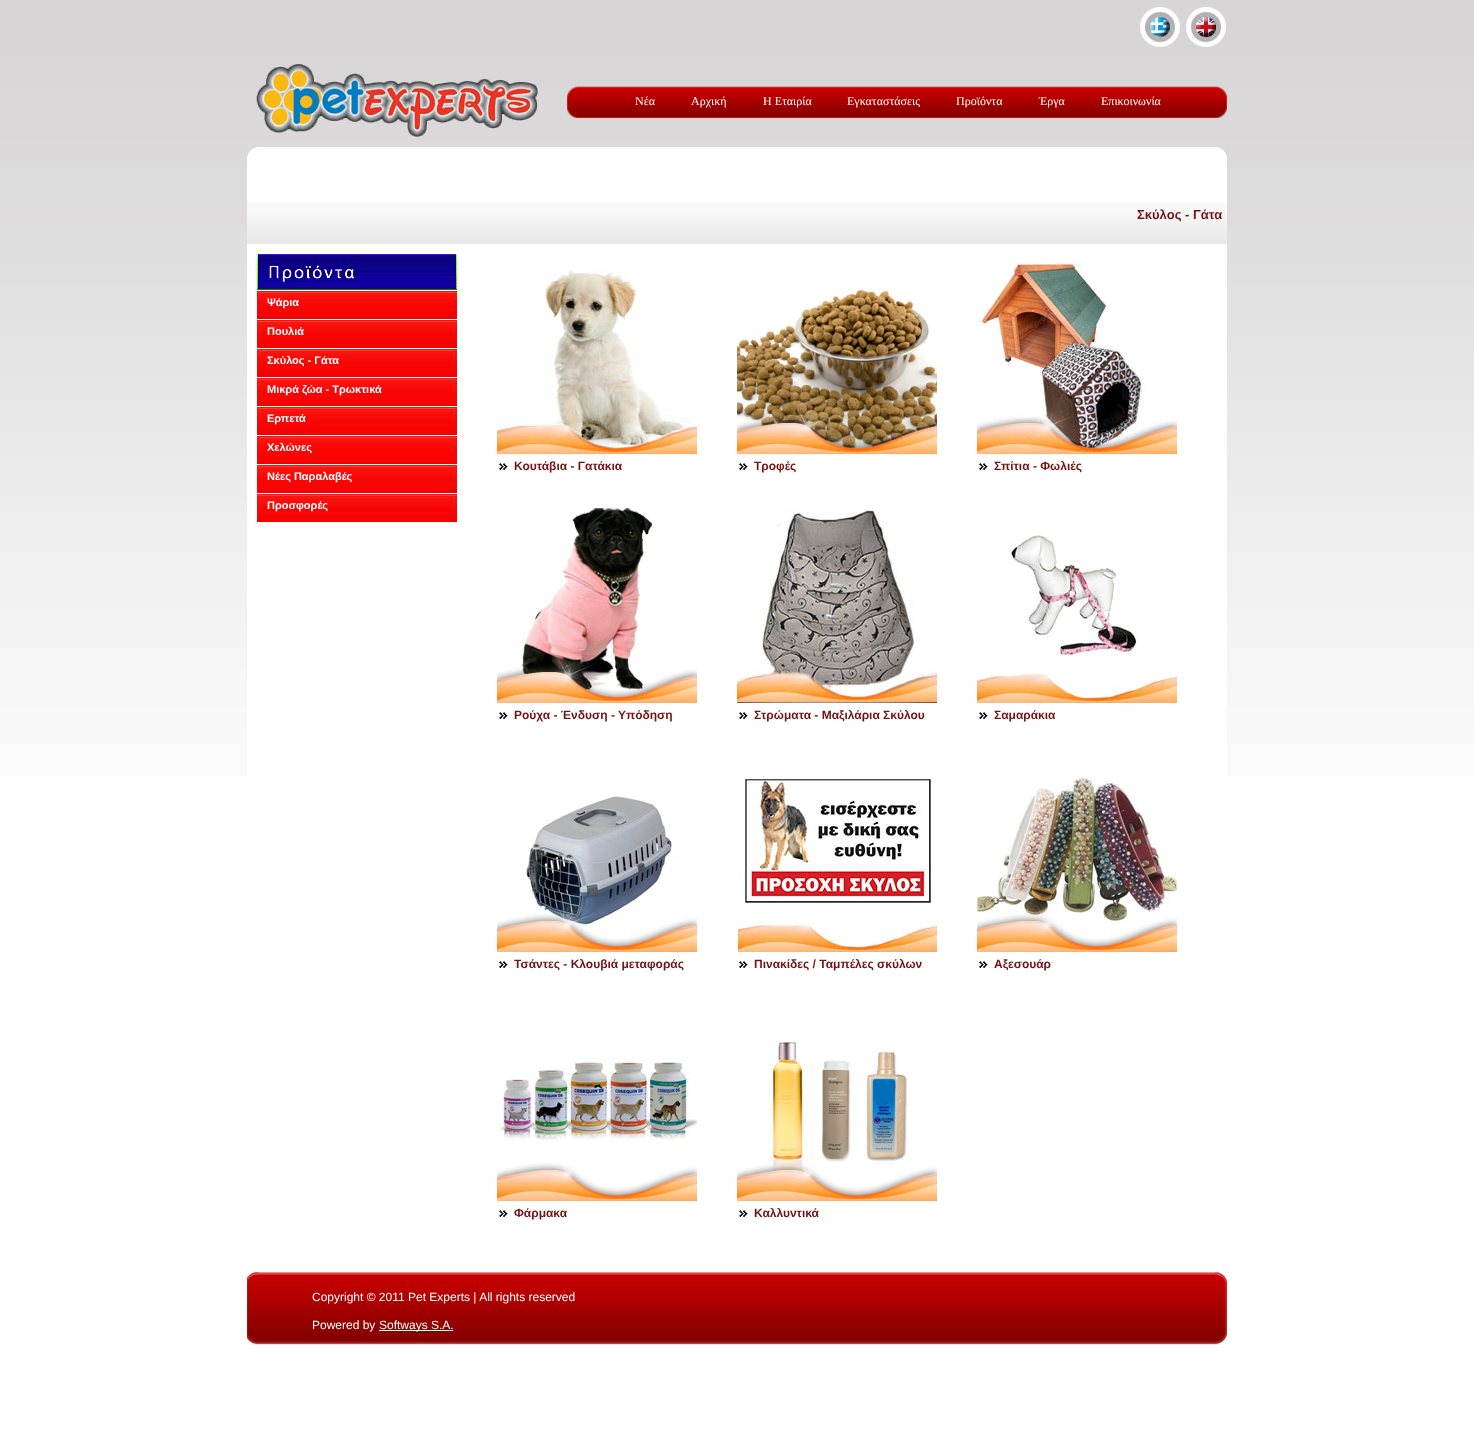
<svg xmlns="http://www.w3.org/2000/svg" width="1474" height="1438">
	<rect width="100%" height="100%" fill="#FFFFFF" />
	<image x="0" y="0" width="1474" height="776" href="assets/img1.png" />
	<image x="247" y="147" width="980" height="50" href="assets/img2.png" />
	<image x="256" y="64" width="282" height="73" href="assets/img3.png" />
	<image x="1140" y="7" width="40" height="40" href="assets/img4.png" />
	<image x="1186" y="7" width="40" height="40" href="assets/img5.png" />
	<image x="567" y="86" width="660" height="32" href="assets/img6.png" />
	<g font-family="Liberation Serif" font-size="12" fill="#FFFFFF">
		<text x="635" y="105">Νέα</text>
		<text x="691" y="105">Αρχική</text>
		<text x="763" y="105">Η Εταιρία</text>
		<text x="847" y="105">Εγκαταστάσεις</text>
		<text x="956" y="105">Προϊόντα</text>
		<text x="1039" y="105">Έργα</text>
		<text x="1101" y="105">Επικοινωνία</text>
	</g>
	<rect x="247" y="197" width="980" height="579" fill="#FFFFFF" />
	<image x="247" y="202" width="980" height="42" href="assets/img7.png" />
	<text x="1137" y="219" font-family="Liberation Sans" font-size="13" font-weight="700" fill="#721415">Σκύλος - Γάτα</text>
	<image x="257" y="254" width="200" height="36" href="assets/img8.png" />
	<image x="257" y="291" width="200" height="28" href="assets/img9.png" />
	<text x="267" y="306" font-family="Liberation Sans" font-size="11" font-weight="700" fill="#FFFFFF">Ψάρια</text>
	<image x="257" y="320" width="200" height="28" href="assets/img9.png" />
	<text x="267" y="335" font-family="Liberation Sans" font-size="11" font-weight="700" fill="#FFFFFF">Πουλιά</text>
	<image x="257" y="349" width="200" height="28" href="assets/img9.png" />
	<text x="267" y="364" font-family="Liberation Sans" font-size="11" font-weight="700" fill="#FFFFFF">Σκύλος - Γάτα</text>
	<image x="257" y="378" width="200" height="28" href="assets/img9.png" />
	<text x="267" y="393" font-family="Liberation Sans" font-size="11" font-weight="700" fill="#FFFFFF">Μικρά ζώα - Τρωκτικά</text>
	<image x="257" y="407" width="200" height="28" href="assets/img9.png" />
	<text x="267" y="422" font-family="Liberation Sans" font-size="11" font-weight="700" fill="#FFFFFF">Ερπετά</text>
	<image x="257" y="436" width="200" height="28" href="assets/img9.png" />
	<text x="267" y="451" font-family="Liberation Sans" font-size="11" font-weight="700" fill="#FFFFFF">Χελώνες</text>
	<image x="257" y="465" width="200" height="28" href="assets/img9.png" />
	<text x="267" y="480" font-family="Liberation Sans" font-size="11" font-weight="700" fill="#FFFFFF">Νέες Παραλαβές</text>
	<image x="257" y="494" width="200" height="28" href="assets/img9.png" />
	<text x="267" y="509" font-family="Liberation Sans" font-size="11" font-weight="700" fill="#FFFFFF">Προσφορές</text>
	<image x="497" y="270" width="200" height="184" href="assets/img10.png" />
	<image x="499" y="463" width="9" height="7" href="assets/img11.png" />
	<text x="514" y="470" font-family="Liberation Sans" font-size="12" font-weight="700" fill="#721415">Κουτάβια - Γατάκια</text>
	<image x="737" y="286" width="200" height="168" href="assets/img12.png" />
	<image x="739" y="463" width="9" height="7" href="assets/img11.png" />
	<text x="754" y="470" font-family="Liberation Sans" font-size="12" font-weight="700" fill="#721415">Τροφές</text>
	<image x="977" y="262" width="200" height="192" href="assets/img13.png" />
	<image x="979" y="463" width="9" height="7" href="assets/img11.png" />
	<text x="994" y="470" font-family="Liberation Sans" font-size="12" font-weight="700" fill="#721415">Σπίτια - Φωλιές</text>
	<image x="497" y="503" width="200" height="200" href="assets/img14.png" />
	<image x="499" y="712" width="9" height="7" href="assets/img11.png" />
	<text x="514" y="719" font-family="Liberation Sans" font-size="12" font-weight="700" fill="#721415">Ρούχα - Ένδυση - Υπόδηση</text>
	<image x="737" y="509" width="200" height="194" href="assets/img15.png" />
	<image x="739" y="712" width="9" height="7" href="assets/img11.png" />
	<text x="754" y="719" font-family="Liberation Sans" font-size="12" font-weight="700" fill="#721415">Στρώματα - Μαξιλάρια Σκύλου</text>
	<image x="977" y="535" width="200" height="168" href="assets/img16.png" />
	<image x="979" y="712" width="9" height="7" href="assets/img11.png" />
	<text x="994" y="719" font-family="Liberation Sans" font-size="12" font-weight="700" fill="#721415">Σαμαράκια</text>
	<image x="497" y="794" width="200" height="158" href="assets/img17.png" />
	<image x="499" y="961" width="9" height="7" href="assets/img11.png" />
	<text x="514" y="968" font-family="Liberation Sans" font-size="12" font-weight="700" fill="#721415">Τσάντες - Κλουβιά μεταφοράς</text>
	<image x="737" y="776" width="200" height="176" href="assets/img18.png" />
	<image x="739" y="961" width="9" height="7" href="assets/img11.png" />
	<text x="754" y="968" font-family="Liberation Sans" font-size="12" font-weight="700" fill="#721415">Πινακίδες / Ταμπέλες σκύλων</text>
	<image x="977" y="774" width="200" height="178" href="assets/img19.png" />
	<image x="979" y="961" width="9" height="7" href="assets/img11.png" />
	<text x="994" y="968" font-family="Liberation Sans" font-size="12" font-weight="700" fill="#721415">Αξεσουάρ</text>
	<image x="497" y="1057" width="200" height="144" href="assets/img20.png" />
	<image x="499" y="1210" width="9" height="7" href="assets/img11.png" />
	<text x="514" y="1217" font-family="Liberation Sans" font-size="12" font-weight="700" fill="#721415">Φάρμακα</text>
	<image x="737" y="1041" width="200" height="160" href="assets/img21.png" />
	<image x="739" y="1210" width="9" height="7" href="assets/img11.png" />
	<text x="754" y="1217" font-family="Liberation Sans" font-size="12" font-weight="700" fill="#721415">Καλλυντικά</text>
	<image x="247" y="1271" width="980" height="74" href="assets/img22.png" />
	<g font-family="Liberation Sans" font-size="12" fill="#FFFFFF">
		<text x="312" y="1301">Copyright © 2011 Pet Experts | All rights reserved</text>
		<text x="312" y="1329">Powered by</text>
	</g>
	<rect x="379" y="1330" width="74" height="1" fill="#FFFFFF" />
	<text x="379" y="1329" font-family="Liberation Sans" font-size="12" fill="#FFFFFF">Softways S.A.</text>
</svg>
